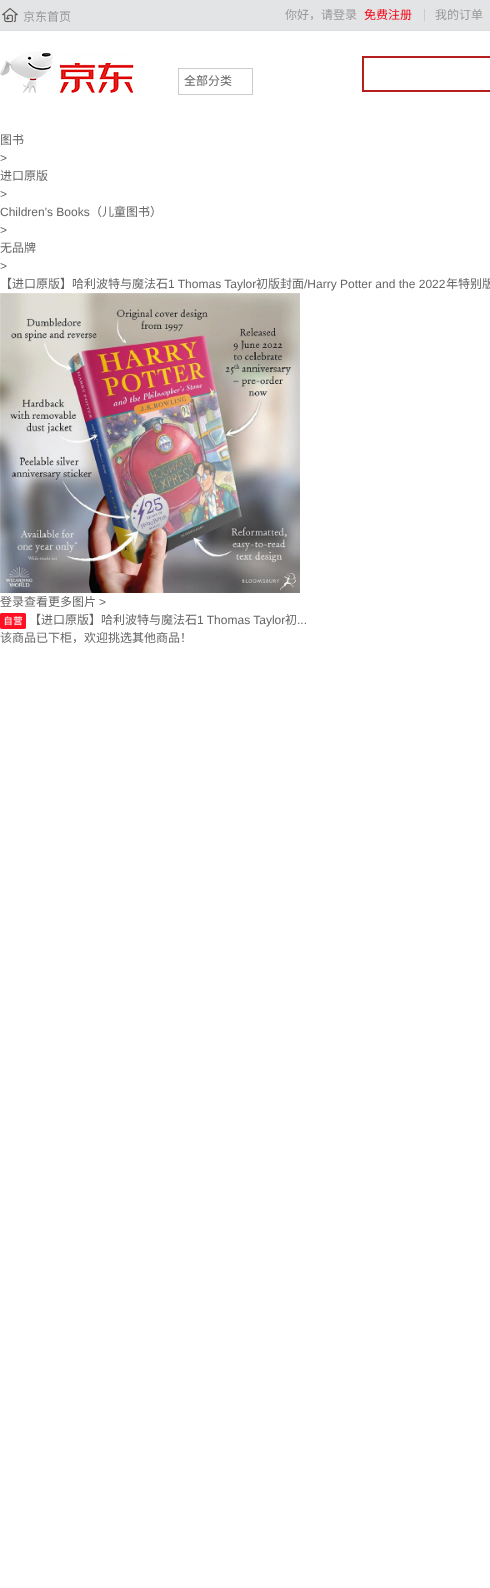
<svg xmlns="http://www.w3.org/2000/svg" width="490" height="1588">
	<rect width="100%" height="100%" fill="#FFFFFF" />
	<rect x="0" y="0" width="490" height="30" fill="#E3E4E5" />
	<rect x="0" y="30" width="490" height="1" fill="#DDDDDD" />
	<image x="2" y="8" width="16" height="15" href="assets/img1.png" />
	<g font-family="Noto Sans CJK SC" font-size="12" fill="#999999">
		<text x="23" y="21">京东首页</text>
		<text x="285" y="19">你好，请登录</text>
	</g>
	<text x="364" y="19" font-family="Noto Sans CJK SC" font-size="12" fill="#F30213">免费注册</text>
	<rect x="424" y="9" width="1" height="12" fill="#CCCCCC" />
	<text x="435" y="19" font-family="Noto Sans CJK SC" font-size="12" fill="#999999">我的订单</text>
	<image x="0" y="51" width="134" height="42" href="assets/img2.png" />
	<rect x="178.5" y="68.5" width="74" height="26" fill="none" stroke="#CCCCCC" />
	<text x="184" y="85" font-family="Noto Sans CJK SC" font-size="12" fill="#666666">全部分类</text>
	<rect x="362" y="56" width="128" height="2" fill="#B61D1D" />
	<rect x="362" y="90" width="128" height="2" fill="#B61D1D" />
	<rect x="362" y="56" width="2" height="36" fill="#B61D1D" />
	<text x="0" y="144" font-family="Noto Sans CJK SC" font-size="12" fill="#666666">图书</text>
	<text x="0" y="162" font-family="Liberation Sans" font-size="12" fill="#666666">&gt;</text>
	<text x="0" y="180" font-family="Noto Sans CJK SC" font-size="12" fill="#666666">进口原版</text>
	<g font-family="Liberation Sans" font-size="12" fill="#666666">
		<text x="0" y="198">&gt;</text>
		<text x="0" y="216">Children's Books</text>
	</g>
	<text x="90" y="216" font-family="Noto Sans CJK SC" font-size="12" fill="#666666">（儿童图书）</text>
	<text x="0" y="234" font-family="Liberation Sans" font-size="12" fill="#666666">&gt;</text>
	<text x="0" y="252" font-family="Noto Sans CJK SC" font-size="12" fill="#666666">无品牌</text>
	<text x="0" y="270" font-family="Liberation Sans" font-size="12" fill="#666666">&gt;</text>
	<text x="0" y="288" font-family="Noto Sans CJK SC" font-size="12" fill="#666666">【进口原版】哈利波特与魔法石</text>
	<text x="168" y="288" font-family="Liberation Sans" font-size="12" fill="#666666">1 Thomas Taylor</text>
	<text x="256" y="288" font-family="Noto Sans CJK SC" font-size="12" fill="#666666">初版封面</text>
	<text x="304" y="288" font-family="Liberation Sans" font-size="12" fill="#666666">/Harry Potter and the 2022</text>
	<text x="446" y="288" font-family="Noto Sans CJK SC" font-size="12" fill="#666666">年特别版</text>
	<image x="0" y="293" width="300" height="300" href="assets/img3.png" />
	<text x="0" y="606" font-family="Noto Sans CJK SC" font-size="12" fill="#666666">登录查看更多图片</text>
	<text x="99" y="606" font-family="Liberation Sans" font-size="12" fill="#666666">&gt;</text>
	<image x="0" y="613" width="26" height="16" href="assets/img4.png" />
	<text x="29" y="624" font-family="Noto Sans CJK SC" font-size="12" fill="#666666">【进口原版】哈利波特与魔法石</text>
	<text x="197" y="624" font-family="Liberation Sans" font-size="12" fill="#666666">1 Thomas Taylor</text>
	<text x="285" y="624" font-family="Noto Sans CJK SC" font-size="12" fill="#666666">初</text>
	<text x="297" y="624" font-family="Liberation Sans" font-size="12" fill="#666666">...</text>
	<text x="0" y="642" font-family="Noto Sans CJK SC" font-size="12" fill="#666666">该商品已下柜，欢迎挑选其他商品！</text>
</svg>
